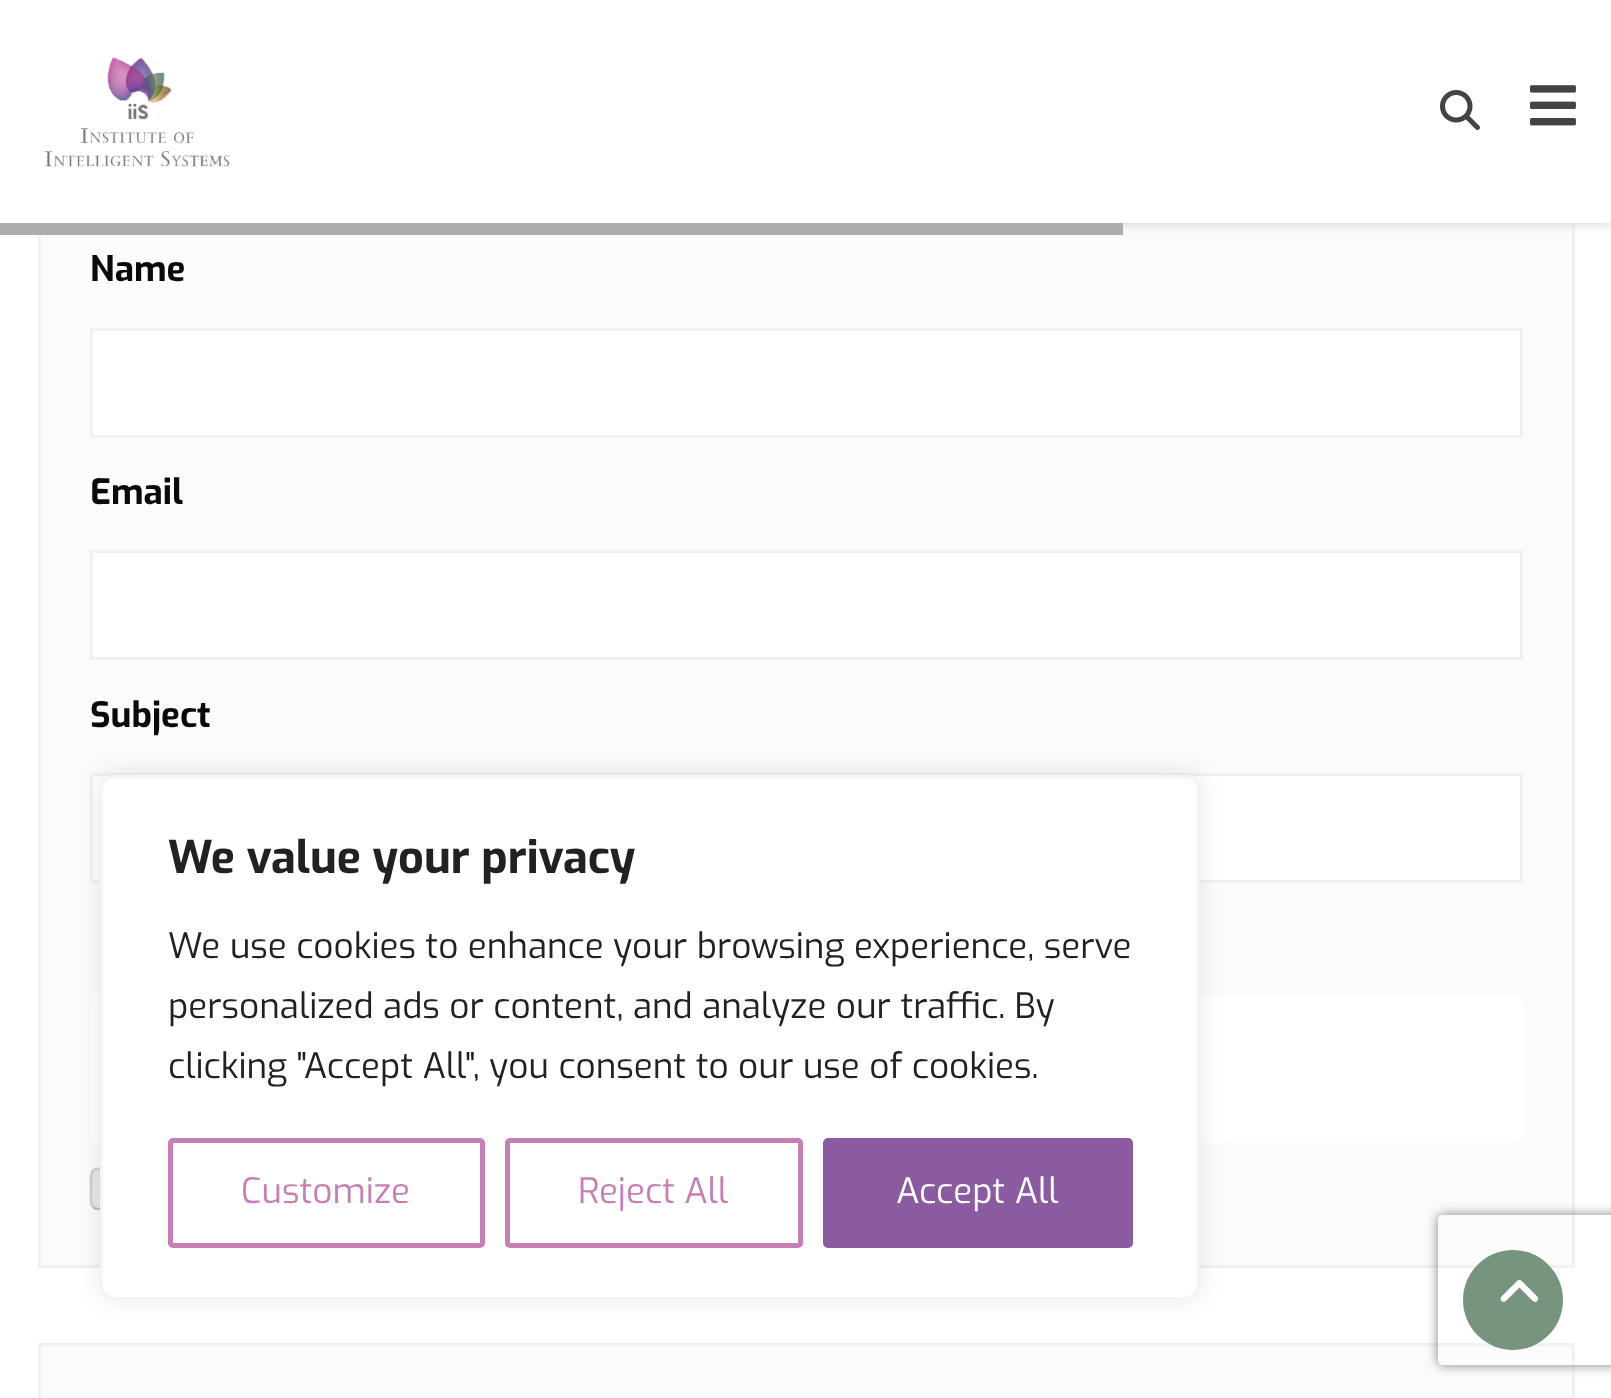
<svg xmlns="http://www.w3.org/2000/svg" width="1611" height="1398">
	<defs>
		<clipPath id="clip1"><path d="M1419 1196H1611V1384H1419ZM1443 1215H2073C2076 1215 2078 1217 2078 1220V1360C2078 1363 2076 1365 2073 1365H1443C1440 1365 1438 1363 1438 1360V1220C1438 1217 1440 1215 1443 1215Z" clip-rule="evenodd" /></clipPath>
	</defs>
	<rect width="100%" height="100%" fill="#FFFFFF" />
	<rect x="41" y="223" width="1531" height="1042" fill="#FBFBFB" />
	<rect x="39.5" y="-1.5" width="1534" height="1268" fill="none" stroke="#F1F1F1" stroke-width="3" />
	<rect x="0" y="0" width="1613" height="223" fill="#CCCCCC" filter="blur(6px)" />
	<rect x="0" y="0" width="1611" height="223" fill="#FFFFFF" />
	<image x="44" y="57" width="186" height="110" href="assets/img1.png" />
	<image x="1440" y="90" width="40" height="40" href="assets/img2.png" />
	<image x="1530" y="85" width="46" height="41" href="assets/img3.png" />
	<rect x="0" y="223" width="1123" height="12" fill="#ADADAD" />
	<text x="90" y="281" font-family="Exo" font-size="35" font-weight="700" fill="#0A0A0A">Name</text>
	<rect x="91.5" y="329.5" width="1430" height="107" fill="#FFFFFF" stroke="#F1F1F1" stroke-width="3" />
	<text x="90" y="504" font-family="Exo" font-size="35" font-weight="700" fill="#0A0A0A">Email</text>
	<rect x="91.5" y="551.5" width="1430" height="107" fill="#FFFFFF" stroke="#F1F1F1" stroke-width="3" />
	<text x="90" y="727" font-family="Exo" font-size="35" font-weight="700" fill="#0A0A0A">Subject</text>
	<rect x="91.5" y="774.5" width="1430" height="107" fill="#FFFFFF" stroke="#F1F1F1" stroke-width="3" />
	<rect x="90" y="995" width="1433" height="148" rx="8" fill="#FFFFFF" />
	<rect x="90" y="1168" width="168" height="42" rx="8" fill="#E6E6E6" />
	<path d="M254.5 1207C253 1208 251.5 1209 250 1209H97.5C96 1209 94.5 1208 93 1207" fill="none" stroke="#BBBBBB" stroke-width="2.5" />
	<path d="M93 1207C90 1203.5 91 1197.5 91 1193.5C91 1163 88.5 1169 123 1169H224.5C259 1169 256 1163 256 1193.5C256 1197.5 257.5 1203.5 254.5 1207" fill="none" stroke="#CCCCCC" stroke-width="2.5" />
	<rect x="39.5" y="1344.5" width="1534" height="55" fill="#FBFBFB" stroke="#F1F1F1" stroke-width="3" />
	<rect x="100" y="773" width="1100" height="525" rx="15" fill="#ACABAB" fill-opacity="0.3" filter="blur(12.5px)" />
	<rect x="101.5" y="776.5" width="1097" height="522" rx="13.5" fill="#FFFFFF" stroke="#F4F4F4" stroke-width="3" />
	<text x="168" y="873" font-family="Exo" font-size="45" font-weight="700" fill="#212121">We value your privacy</text>
	<g font-family="Exo" font-size="35" fill="#212121">
		<text x="168" y="958">We use cookies to enhance your browsing experience, serve</text>
		<text x="168" y="1018">personalized ads or content, and analyze our traffic. By</text>
		<text x="168" y="1078">clicking "Accept All", you consent to our use of cookies.</text>
	</g>
	<rect x="170.5" y="1140.5" width="312" height="105" rx="2.5" fill="none" stroke="#C67EB5" stroke-width="5" />
	<text x="241" y="1203" font-family="Exo" font-size="35" fill="#C67EB5">Customize</text>
	<rect x="507.5" y="1140.5" width="293" height="105" rx="2.5" fill="none" stroke="#C67EB5" stroke-width="5" />
	<text x="578" y="1203" font-family="Exo" font-size="35" fill="#C67EB5">Reject All</text>
	<rect x="825.5" y="1140.5" width="305" height="105" rx="2.5" fill="#8A5BA1" stroke="#8A5BA1" stroke-width="5" />
	<text x="896" y="1203" font-family="Exo" font-size="35" fill="#FFFFFF">Accept All</text>
	<g clip-path="url(#clip1)">
		<rect x="1438" y="1215" width="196" height="150" rx="5" fill="#808080" filter="blur(6px)" />
	</g>
	<circle cx="1513" cy="1300" r="50" fill="#76947E" />
	<image x="1500" y="1280" width="39" height="22" href="assets/img4.png" />
</svg>
